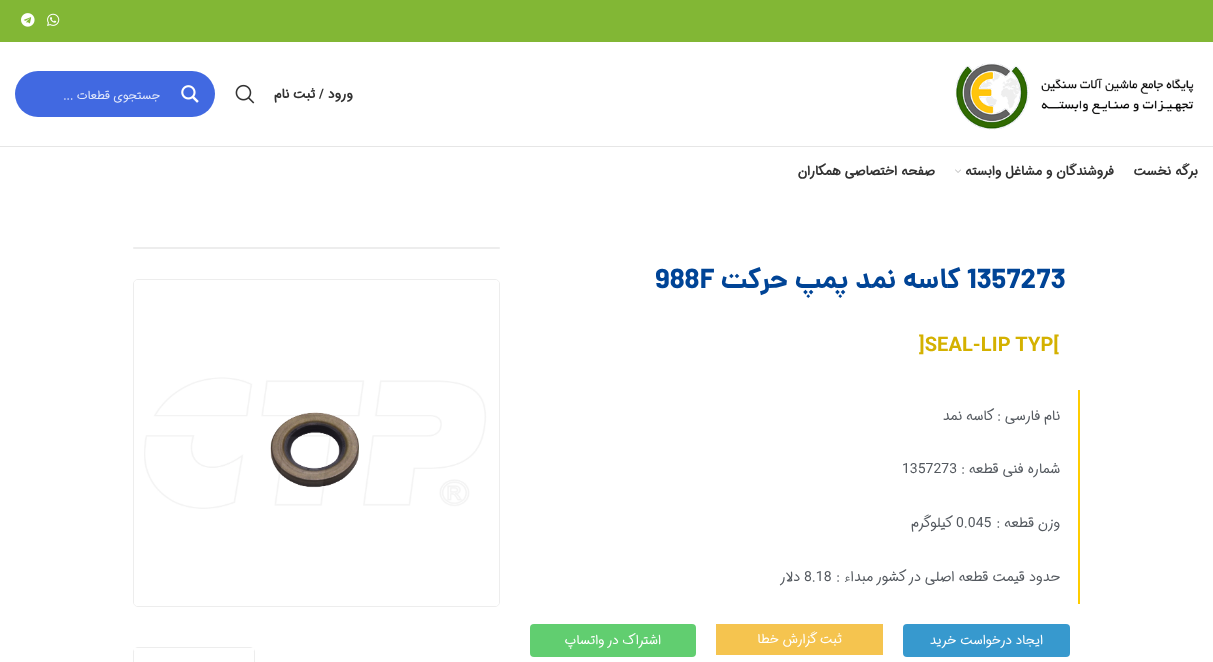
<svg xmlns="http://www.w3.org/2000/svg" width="1213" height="662">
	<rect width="100%" height="100%" fill="#FFFFFF" />
	<rect x="0" y="0" width="1213" height="42" fill="#82B735" />
	<image x="47" y="13" width="13" height="13" href="assets/img1.png" />
	<image x="21" y="13" width="14" height="14" href="assets/img2.png" />
	<rect x="0" y="146" width="1213" height="1" fill="#E6E6E6" />
	<image x="955" y="63" width="239" height="67" href="assets/img3.png" />
	<text x="353" y="98" font-family="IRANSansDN" font-size="13" font-weight="700" direction="rtl" fill="#333333">ورود / ثبت نام</text>
	<image x="235" y="84" width="20" height="20" href="assets/img4.png" />
	<rect x="15" y="71" width="200" height="46" rx="23" fill="#4169E1" />
	<image x="181" y="85" width="18" height="18" href="assets/img5.png" />
	<text x="160" y="99" font-family="IRANSansDN" font-size="12" direction="rtl" fill="#E3E9FB">جستجوی قطعات ...</text>
	<g font-family="IRANSansDN" font-size="13" font-weight="700" direction="rtl" fill="#333333">
		<text x="1198" y="175">برگه نخست</text>
		<text x="1114" y="175">فروشندگان و مشاغل وابسته</text>
	</g>
	<image x="955" y="169" width="6" height="4" href="assets/img6.png" />
	<text x="935" y="175" font-family="IRANSansDN" font-size="13" font-weight="700" direction="rtl" fill="#333333">صفحه اختصاصی همکاران</text>
	<text x="967" y="288" font-family="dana" font-size="28" font-weight="700" fill="#004496">1357273</text>
	<text x="961" y="288" font-family="dana" font-size="28" font-weight="700" direction="rtl" fill="#004496">کاسه نمد پمپ حرکت</text>
	<text x="655" y="288" font-family="dana" font-size="28" font-weight="700" fill="#004496">988F</text>
	<text x="919" y="351" font-family="Roboto" font-size="20" font-weight="700" letter-spacing="0.1" fill="#D4B100">]SEAL-LIP TYP[</text>
	<rect x="1078" y="390" width="2" height="214" fill="#FFCC00" />
	<g font-family="IRANSansDN" font-size="14" direction="rtl" fill="#54595F">
		<text x="1060" y="420">نام فارسی : کاسه نمد</text>
		<text x="1060" y="473">شماره فنی قطعه :</text>
	</g>
	<text x="902" y="473" font-family="IRANSansDN" font-size="14" fill="#54595F">1357273</text>
	<text x="1060" y="527" font-family="IRANSansDN" font-size="14" direction="rtl" fill="#54595F">وزن قطعه :</text>
	<text x="956" y="527" font-family="IRANSansDN" font-size="14" fill="#54595F">0.045</text>
	<g font-family="IRANSansDN" font-size="14" direction="rtl" fill="#54595F">
		<text x="953" y="527">کیلوگرم</text>
		<text x="1060" y="581">حدود قیمت قطعه اصلی در کشور مبداء :</text>
	</g>
	<text x="804" y="581" font-family="IRANSansDN" font-size="14" fill="#54595F">8.18</text>
	<text x="800" y="581" font-family="IRANSansDN" font-size="14" direction="rtl" fill="#54595F">دلار</text>
	<rect x="903" y="624" width="167" height="33" rx="4" fill="#3799CE" />
	<text x="1043" y="644" font-family="IRANSansDN" font-size="13" direction="rtl" fill="#FFFFFF">ایجاد درخواست خرید</text>
	<rect x="716" y="624" width="167" height="31" fill="#F5C44F" />
	<text x="842" y="643" font-family="IRANSansDN" font-size="13" direction="rtl" fill="#FFFFFF">ثبت گزارش خطا</text>
	<rect x="530" y="624" width="166" height="33" rx="4" fill="#61CE70" />
	<text x="661" y="644" font-family="IRANSansDN" font-size="13" direction="rtl" fill="#FFFFFF">اشتراک در واتساپ</text>
	<rect x="133" y="247" width="367" height="2" rx="1" fill="#EDEDED" />
	<rect x="133.5" y="279.5" width="366" height="327" rx="4.5" fill="none" stroke="#EDEDED" />
	<image x="134" y="280" width="365" height="326" href="assets/img7.png" />
	<rect x="133.5" y="647.5" width="121" height="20" rx="4.5" fill="none" stroke="#EDEDED" />
	<rect x="134" y="648" width="120" height="3" fill="#FFFFFF" />
</svg>
